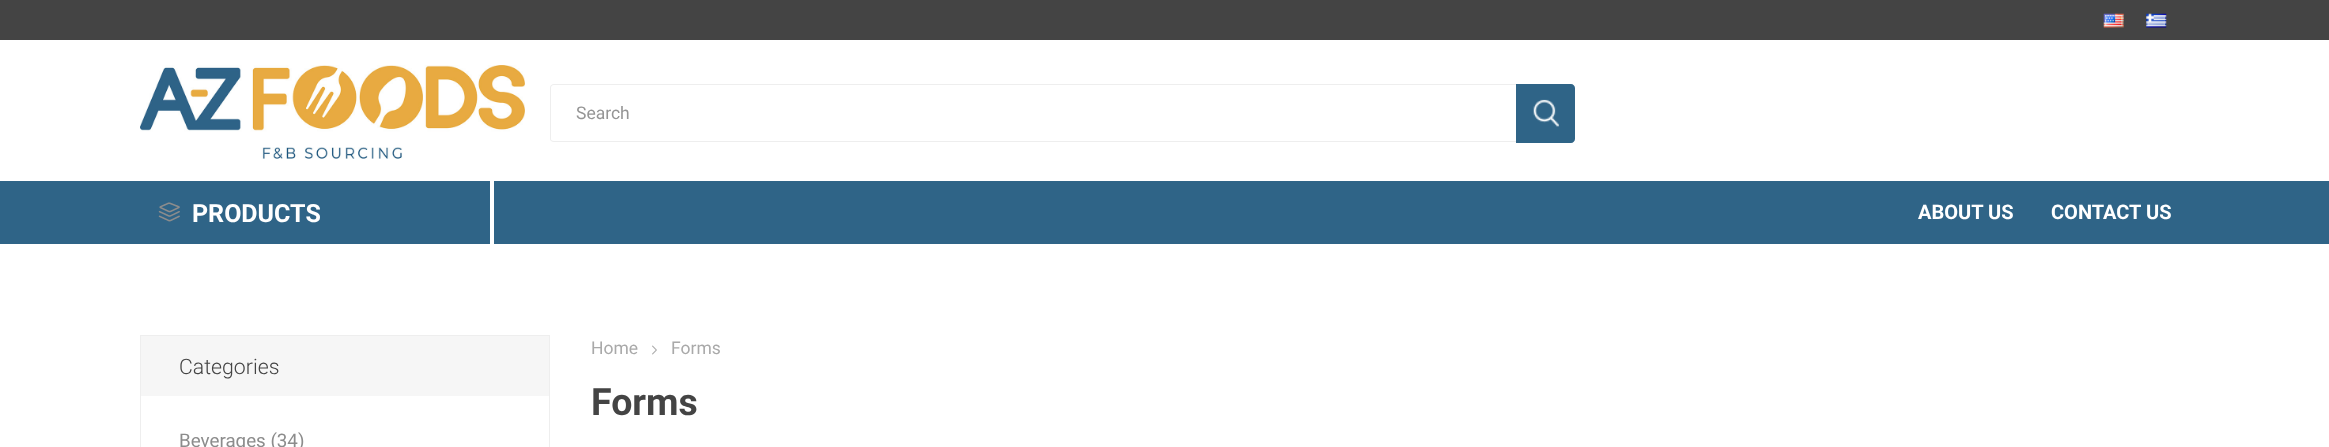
<svg xmlns="http://www.w3.org/2000/svg" width="2329" height="447">
	<rect width="100%" height="100%" fill="#FFFFFF" />
	<rect x="0" y="0" width="2329" height="40" fill="#444444" />
	<image x="2103" y="13" width="21" height="15" href="assets/img1.png" />
	<image x="2146" y="13" width="21" height="15" href="assets/img2.png" />
	<image x="140" y="65" width="385" height="94" href="assets/img3.png" />
	<path d="M554 84H1516V142H554C552 142 550 141 550 139V88C550 85 552 84 554 84ZM554 85H1516V141H554C552 141 551 140 551 139V88C551 86 552 85 554 85Z" fill="#EEEEEE" fill-rule="evenodd" />
	<text x="576" y="119" font-family="Roboto" font-size="17.5" fill="#959595">Search</text>
	<path d="M1516 84H1571C1573 84 1575 86 1575 88V139C1575 141 1573 143 1571 143H1516Z" fill="#2F6487" />
	<image x="1533" y="99" width="26" height="28" href="assets/img4.png" />
	<rect x="0" y="181" width="2329" height="63" fill="#2F6487" />
	<rect x="490" y="181" width="4" height="63" fill="#FFFFFF" />
	<image x="158" y="202" width="22" height="20" href="assets/img5.png" />
	<text x="192" y="222" font-family="Roboto" font-size="25" font-weight="700" fill="#FFFFFF">PRODUCTS</text>
	<g font-family="Roboto" font-size="20" font-weight="700" fill="#FFFFFF">
		<text x="1918" y="219">ABOUT US</text>
		<text x="2051" y="219">CONTACT US</text>
	</g>
	<rect x="140.5" y="335.5" width="409" height="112" fill="none" stroke="#EEEEEE" />
	<rect x="141" y="336" width="408" height="60" fill="#F6F6F6" />
	<text x="179" y="374" font-family="Roboto" font-size="21.25" font-weight="300" fill="#444444">Categories</text>
	<text x="179" y="447" font-family="Roboto" font-size="18.75" fill="#8C8C8C">Beverages (34)</text>
	<text x="591" y="354" font-family="Roboto" font-size="17.5" fill="#A9A9A9">Home</text>
	<image x="652" y="345" width="5" height="10" href="assets/img6.png" />
	<text x="671" y="354" font-family="Roboto" font-size="17.5" fill="#A9A9A9">Forms</text>
	<text x="591" y="415" font-family="Roboto" font-size="37.5" font-weight="700" fill="#444444">Forms</text>
</svg>
